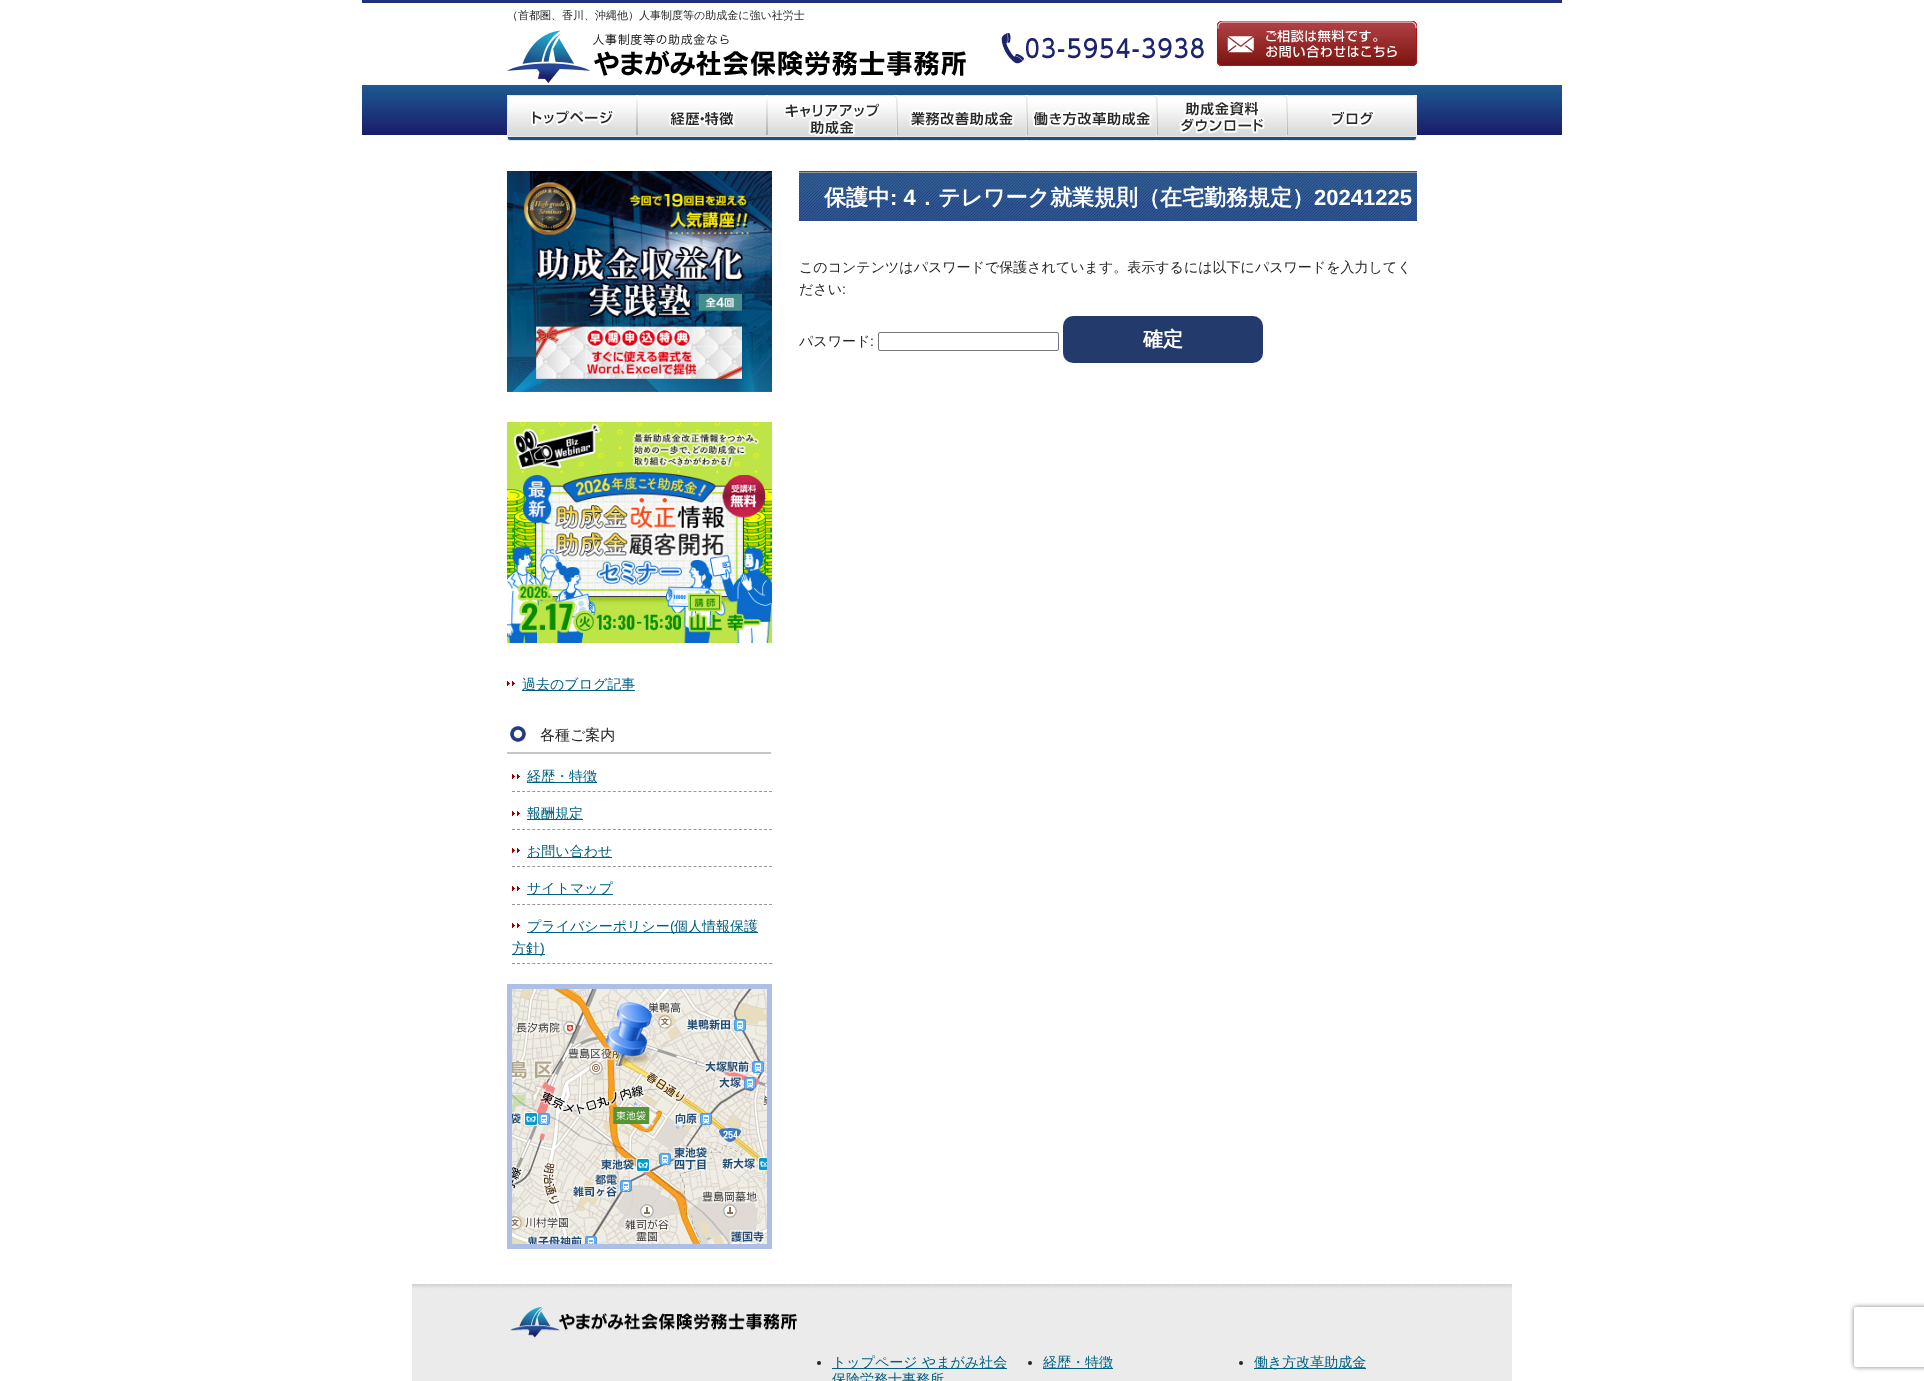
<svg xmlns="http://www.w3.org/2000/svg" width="1924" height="1381">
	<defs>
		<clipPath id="clip1"><path d="M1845 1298H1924V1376H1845ZM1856 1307H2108C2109 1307 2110 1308 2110 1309V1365C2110 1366 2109 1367 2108 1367H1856C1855 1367 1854 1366 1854 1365V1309C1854 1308 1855 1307 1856 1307Z" clip-rule="evenodd" /></clipPath>
	</defs>
	<rect width="100%" height="100%" fill="#FFFFFF" />
	<image x="362" y="0" width="1200" height="135" href="assets/img1.png" />
	<text x="507" y="19" font-family="WenQuanYi Zen Hei" font-size="11" font-weight="500" fill="#252525">（首都圏、香川、沖縄他）人事制度等の助成金に強い社労士</text>
	<image x="507" y="30" width="459" height="53" href="assets/img2.png" />
	<image x="1001" y="33" width="203" height="31" href="assets/img3.png" />
	<image x="1217" y="21" width="200" height="45" href="assets/img4.png" />
	<image x="507" y="95" width="130" height="46" href="assets/img5.png" />
	<image x="637" y="95" width="130" height="46" href="assets/img6.png" />
	<image x="767" y="95" width="130" height="46" href="assets/img7.png" />
	<image x="897" y="95" width="130" height="46" href="assets/img8.png" />
	<image x="1027" y="95" width="130" height="46" href="assets/img9.png" />
	<image x="1157" y="95" width="130" height="46" href="assets/img10.png" />
	<image x="1287" y="95" width="130" height="46" href="assets/img11.png" />
	<image x="799" y="171" width="618" height="50" href="assets/img12.png" />
	<text x="824" y="205" font-family="WenQuanYi Zen Hei" font-size="22" font-weight="700" fill="#FFFFFF">保護中</text>
	<text x="890" y="205" font-family="Liberation Sans" font-size="22" font-weight="700" fill="#FFFFFF">: 4</text>
	<text x="916" y="205" font-family="WenQuanYi Zen Hei" font-size="22" font-weight="700" fill="#FFFFFF">．テレワーク就業規則（在宅勤務規定）</text>
	<text x="1314" y="205" font-family="Liberation Sans" font-size="22" font-weight="700" fill="#FFFFFF">20241225</text>
	<g font-family="WenQuanYi Zen Hei" font-size="14" font-weight="500" fill="#252525">
		<text x="799" y="272">このコンテンツはパスワードで保護されています。表示するには以下にパスワードを入力してく</text>
		<text x="799" y="294">ださい</text>
	</g>
	<text x="842" y="294" font-family="Liberation Sans" font-size="14" fill="#252525">:</text>
	<text x="799" y="346" font-family="WenQuanYi Zen Hei" font-size="14" font-weight="500" fill="#252525">パスワード</text>
	<text x="870" y="346" font-family="Liberation Sans" font-size="14" fill="#252525">:</text>
	<rect x="878.5" y="332.5" width="180" height="18" rx="1.5" fill="none" stroke="#767676" />
	<rect x="1063" y="316" width="200" height="47" rx="10" fill="#233B6C" />
	<text x="1143" y="346" font-family="WenQuanYi Zen Hei" font-size="20" font-weight="700" fill="#FFFFFF">確定</text>
	<image x="507" y="171" width="265" height="221" href="assets/img13.png" />
	<image x="507" y="422" width="265" height="221" href="assets/img14.png" />
	<image x="507" y="681" width="8" height="5" href="assets/img15.png" />
	<rect x="522" y="690" width="113" height="1" fill="#016181" />
	<text x="522" y="689" font-family="WenQuanYi Zen Hei" font-size="14" font-weight="500" fill="#016181">過去のブログ記事</text>
	<image x="507" y="726" width="264" height="28" href="assets/img16.png" />
	<text x="540" y="740" font-family="WenQuanYi Zen Hei" font-size="15" font-weight="500" fill="#252525">各種ご案内</text>
	<path d="M512 791.5H772" fill="none" stroke="#999999" stroke-dasharray="3 2.04" />
	<image x="512" y="774" width="8" height="5" href="assets/img15.png" />
	<rect x="527" y="782" width="70" height="1" fill="#016181" />
	<text x="527" y="781" font-family="WenQuanYi Zen Hei" font-size="14" font-weight="500" fill="#016181">経歴・特徴</text>
	<path d="M512 829.5H772" fill="none" stroke="#999999" stroke-dasharray="3 2.04" />
	<image x="512" y="811" width="8" height="5" href="assets/img15.png" />
	<rect x="527" y="819" width="56" height="1" fill="#016181" />
	<text x="527" y="818" font-family="WenQuanYi Zen Hei" font-size="14" font-weight="500" fill="#016181">報酬規定</text>
	<path d="M512 866.5H772" fill="none" stroke="#999999" stroke-dasharray="3 2.04" />
	<image x="512" y="848" width="8" height="5" href="assets/img15.png" />
	<rect x="527" y="857" width="85" height="1" fill="#016181" />
	<text x="527" y="856" font-family="WenQuanYi Zen Hei" font-size="14" font-weight="500" fill="#016181">お問い合わせ</text>
	<path d="M512 904.5H772" fill="none" stroke="#999999" stroke-dasharray="3 2.04" />
	<image x="512" y="886" width="8" height="5" href="assets/img15.png" />
	<rect x="527" y="894" width="86" height="1" fill="#016181" />
	<text x="527" y="893" font-family="WenQuanYi Zen Hei" font-size="14" font-weight="500" fill="#016181">サイトマップ</text>
	<path d="M512 963.5H772" fill="none" stroke="#999999" stroke-dasharray="3 2.04" />
	<image x="512" y="923" width="8" height="5" href="assets/img15.png" />
	<rect x="527" y="932" width="231" height="1" fill="#016181" />
	<text x="527" y="931" font-family="WenQuanYi Zen Hei" font-size="14" font-weight="500" fill="#016181">プライバシーポリシー</text>
	<text x="670" y="931" font-family="Liberation Sans" font-size="14" fill="#016181">(</text>
	<text x="674" y="931" font-family="WenQuanYi Zen Hei" font-size="14" font-weight="500" fill="#016181">個人情報保護</text>
	<rect x="512" y="954" width="33" height="1" fill="#016181" />
	<text x="512" y="953" font-family="WenQuanYi Zen Hei" font-size="14" font-weight="500" fill="#016181">方針</text>
	<text x="540" y="953" font-family="Liberation Sans" font-size="14" fill="#016181">)</text>
	<image x="507" y="984" width="265" height="265" href="assets/img17.png" />
	<image x="412" y="1284" width="1100" height="97" href="assets/img18.png" />
	<circle cx="819" cy="1363" r="2" fill="#252525" />
	<rect x="832" y="1368" width="175" height="1" fill="#016181" />
	<g font-family="WenQuanYi Zen Hei" font-size="14" font-weight="500" fill="#016181">
		<text x="832" y="1367">トップページ やまがみ社会</text>
		<text x="832" y="1384">保険労務士事務所</text>
	</g>
	<circle cx="1030" cy="1363" r="2" fill="#252525" />
	<rect x="1043" y="1368" width="70" height="1" fill="#016181" />
	<text x="1043" y="1367" font-family="WenQuanYi Zen Hei" font-size="14" font-weight="500" fill="#016181">経歴・特徴</text>
	<circle cx="1241" cy="1363" r="2" fill="#252525" />
	<rect x="1254" y="1368" width="112" height="1" fill="#016181" />
	<text x="1254" y="1367" font-family="WenQuanYi Zen Hei" font-size="14" font-weight="500" fill="#016181">働き方改革助成金</text>
	<g clip-path="url(#clip1)">
		<rect x="1854" y="1307" width="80" height="60" rx="2" fill="#808080" filter="blur(2.5px)" />
	</g>
</svg>
